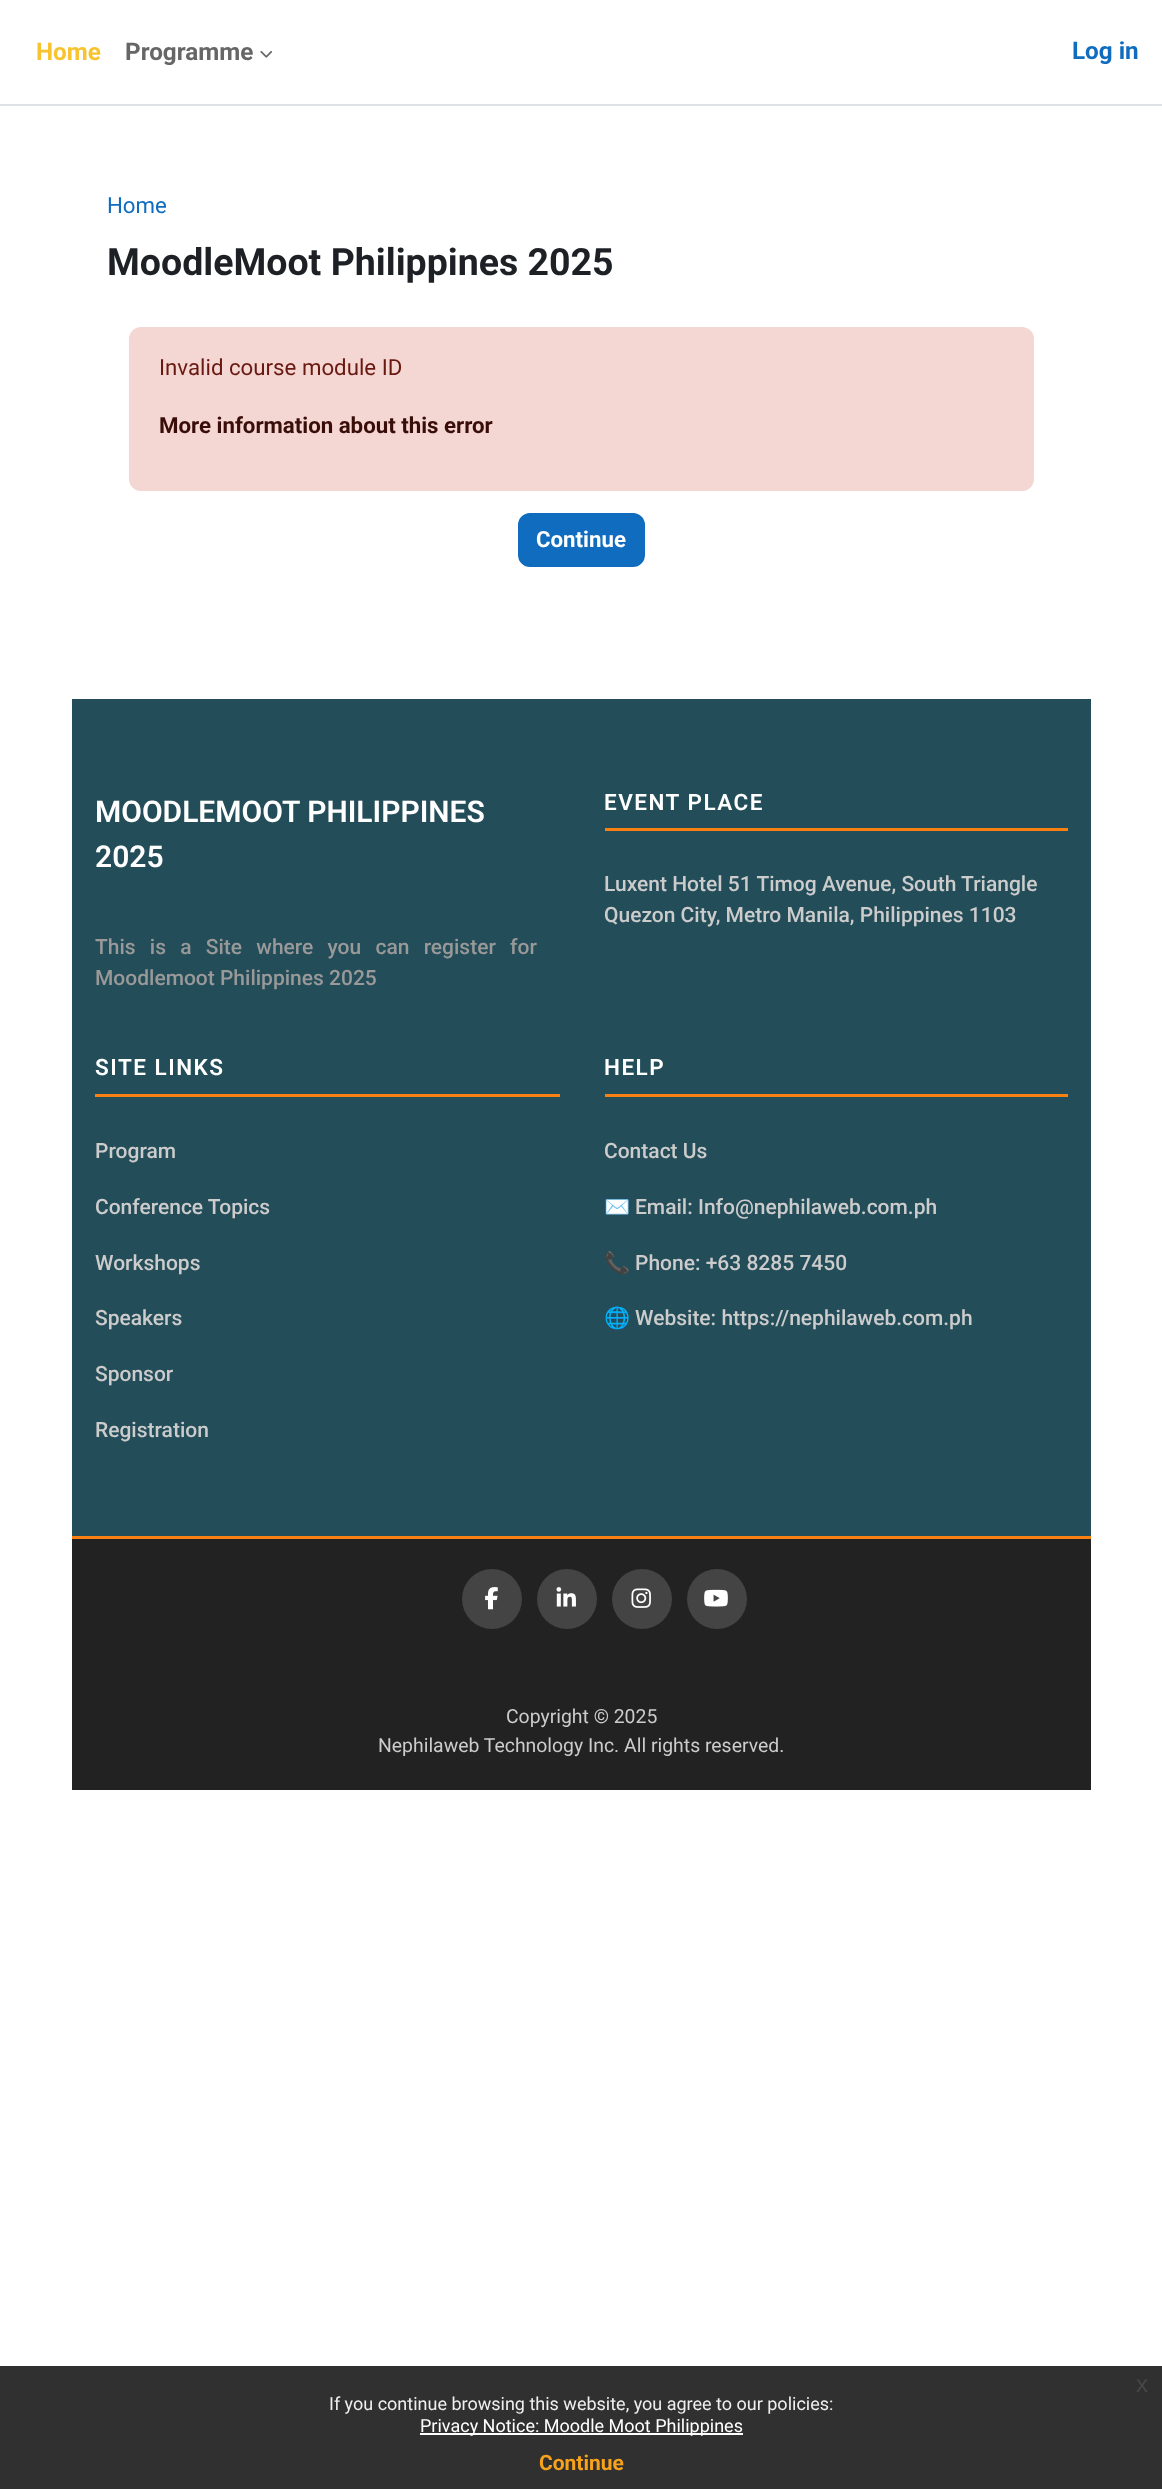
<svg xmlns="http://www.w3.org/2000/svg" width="1162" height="2489">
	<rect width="100%" height="100%" fill="#FFFFFF" />
	<rect x="0" y="104" width="1162" height="2" fill="#DEE2E6" />
	<text x="36" y="60" font-family="Roboto" font-size="24.25" font-weight="700" fill="#F7C32E">Home</text>
	<text x="125" y="60" font-family="Roboto" font-size="24.25" font-weight="700" fill="#666666">Programme</text>
	<image x="260" y="51" width="13" height="7" href="assets/img1.png" />
	<text x="1072" y="59" font-family="Roboto" font-size="24.25" font-weight="700" fill="#0F6CBF">Log in</text>
	<text x="107" y="213" font-family="Roboto" font-size="22.25" fill="#0F6CBF">Home</text>
	<text x="107" y="275" font-family="Roboto" font-size="37.5" font-weight="700" fill="#1D2125">MoodleMoot Philippines 2025</text>
	<rect x="129" y="327" width="905" height="164" rx="12" fill="#F4D6D2" />
	<text x="159" y="375" font-family="Roboto" font-size="22.25" fill="#691911">Invalid course module ID</text>
	<text x="159" y="433" font-family="Roboto" font-size="22.25" font-weight="700" fill="#390E09">More information about this error</text>
	<rect x="519" y="514" width="125" height="52" rx="11" fill="#0F6CBF" stroke="#0F6CBF" stroke-width="2" />
	<text x="536" y="547" font-family="Roboto" font-size="22.25" font-weight="700" fill="#FFFFFF">Continue</text>
	<rect x="72" y="699" width="1019" height="837" fill="#234D59" />
	<rect x="72" y="1536" width="1019" height="3" fill="#F98011" />
	<g font-family="Roboto" font-size="30" font-weight="600" fill="#FFFFFF">
		<text x="95" y="822">MOODLEMOOT PHILIPPINES</text>
		<text x="95" y="867">2025</text>
	</g>
	<g font-family="Roboto" font-size="21" font-weight="500" fill="#999999">
		<text x="95" y="954" word-spacing="9">This is a Site where you can register for</text>
		<text x="95" y="985">Moodlemoot Philippines 2025</text>
	</g>
	<rect x="605" y="828" width="463" height="3" fill="#F98011" />
	<text x="604" y="810" font-family="Roboto" font-size="22.5" font-weight="600" letter-spacing="1.5" fill="#FFFFFF">EVENT PLACE</text>
	<g font-family="Roboto" font-size="21" font-weight="500" fill="#CCCCCC">
		<text x="604" y="891">Luxent Hotel 51 Timog Avenue, South Triangle</text>
		<text x="604" y="922">Quezon City, Metro Manila, Philippines 1103</text>
	</g>
	<rect x="95" y="1094" width="465" height="3" fill="#F98011" />
	<text x="95" y="1075" font-family="Roboto" font-size="22.5" font-weight="600" letter-spacing="1.5" fill="#FFFFFF">SITE LINKS</text>
	<g font-family="Roboto" font-size="21" font-weight="500" fill="#CCCCCC">
		<text x="95" y="1158">Program</text>
		<text x="95" y="1214">Conference Topics</text>
		<text x="95" y="1270">Workshops</text>
		<text x="95" y="1325">Speakers</text>
		<text x="95" y="1381">Sponsor</text>
		<text x="95" y="1437">Registration</text>
	</g>
	<rect x="605" y="1094" width="463" height="3" fill="#F98011" />
	<text x="604" y="1075" font-family="Roboto" font-size="22.5" font-weight="600" letter-spacing="1.5" fill="#FFFFFF">HELP</text>
	<text x="604" y="1158" font-family="Roboto" font-size="21" font-weight="500" fill="#CCCCCC">Contact Us</text>
	<text x="604" y="1214" font-family="Noto Color Emoji" font-size="21" fill="#CCCCCC">✉️</text>
	<text x="635" y="1214" font-family="Roboto" font-size="21" font-weight="500" fill="#CCCCCC">Email: Info@nephilaweb.com.ph</text>
	<text x="604" y="1270" font-family="Noto Color Emoji" font-size="21" fill="#CCCCCC">📞</text>
	<text x="635" y="1270" font-family="Roboto" font-size="21" font-weight="500" fill="#CCCCCC">Phone: +63 8285 7450</text>
	<text x="604" y="1325" font-family="Noto Color Emoji" font-size="21" fill="#CCCCCC">🌐</text>
	<text x="635" y="1325" font-family="Roboto" font-size="21" font-weight="500" fill="#CCCCCC">Website: https://nephilaweb.com.ph</text>
	<rect x="72" y="1539" width="1019" height="251" fill="#222222" />
	<circle cx="492" cy="1599" r="30" fill="#444444" />
	<image x="485" y="1587" width="13" height="23" href="assets/img2.png" />
	<circle cx="567" cy="1599" r="30" fill="#444444" />
	<image x="556" y="1587" width="20" height="20" href="assets/img3.png" />
	<circle cx="642" cy="1599" r="30" fill="#444444" />
	<image x="631" y="1588" width="20" height="20" href="assets/img4.png" />
	<circle cx="717" cy="1599" r="30" fill="#444444" />
	<image x="704" y="1589" width="24" height="18" href="assets/img5.png" />
	<g font-family="Roboto" font-size="19.4" fill="#CCCCCC">
		<text x="506" y="1723">Copyright © 2025</text>
		<text x="378" y="1752">Nephilaweb Technology Inc. All rights reserved.</text>
	</g>
	<rect x="0" y="2366" width="1162" height="123" fill="#303030" />
	<text x="1136" y="2392" font-family="Liberation Sans" font-size="24" fill="#474747">x</text>
	<text x="329" y="2410" font-family="Roboto" font-size="18" fill="#EFEFEF">If you continue browsing this website, you agree to our policies:</text>
	<rect x="420" y="2433" width="323" height="2" fill="#FFFFFF" />
	<text x="420" y="2432" font-family="Roboto" font-size="18" fill="#FFFFFF">Privacy Notice: Moodle Moot Philippines</text>
	<text x="539" y="2470" font-family="Roboto" font-size="21" font-weight="700" fill="#F6A21D">Continue</text>
</svg>
